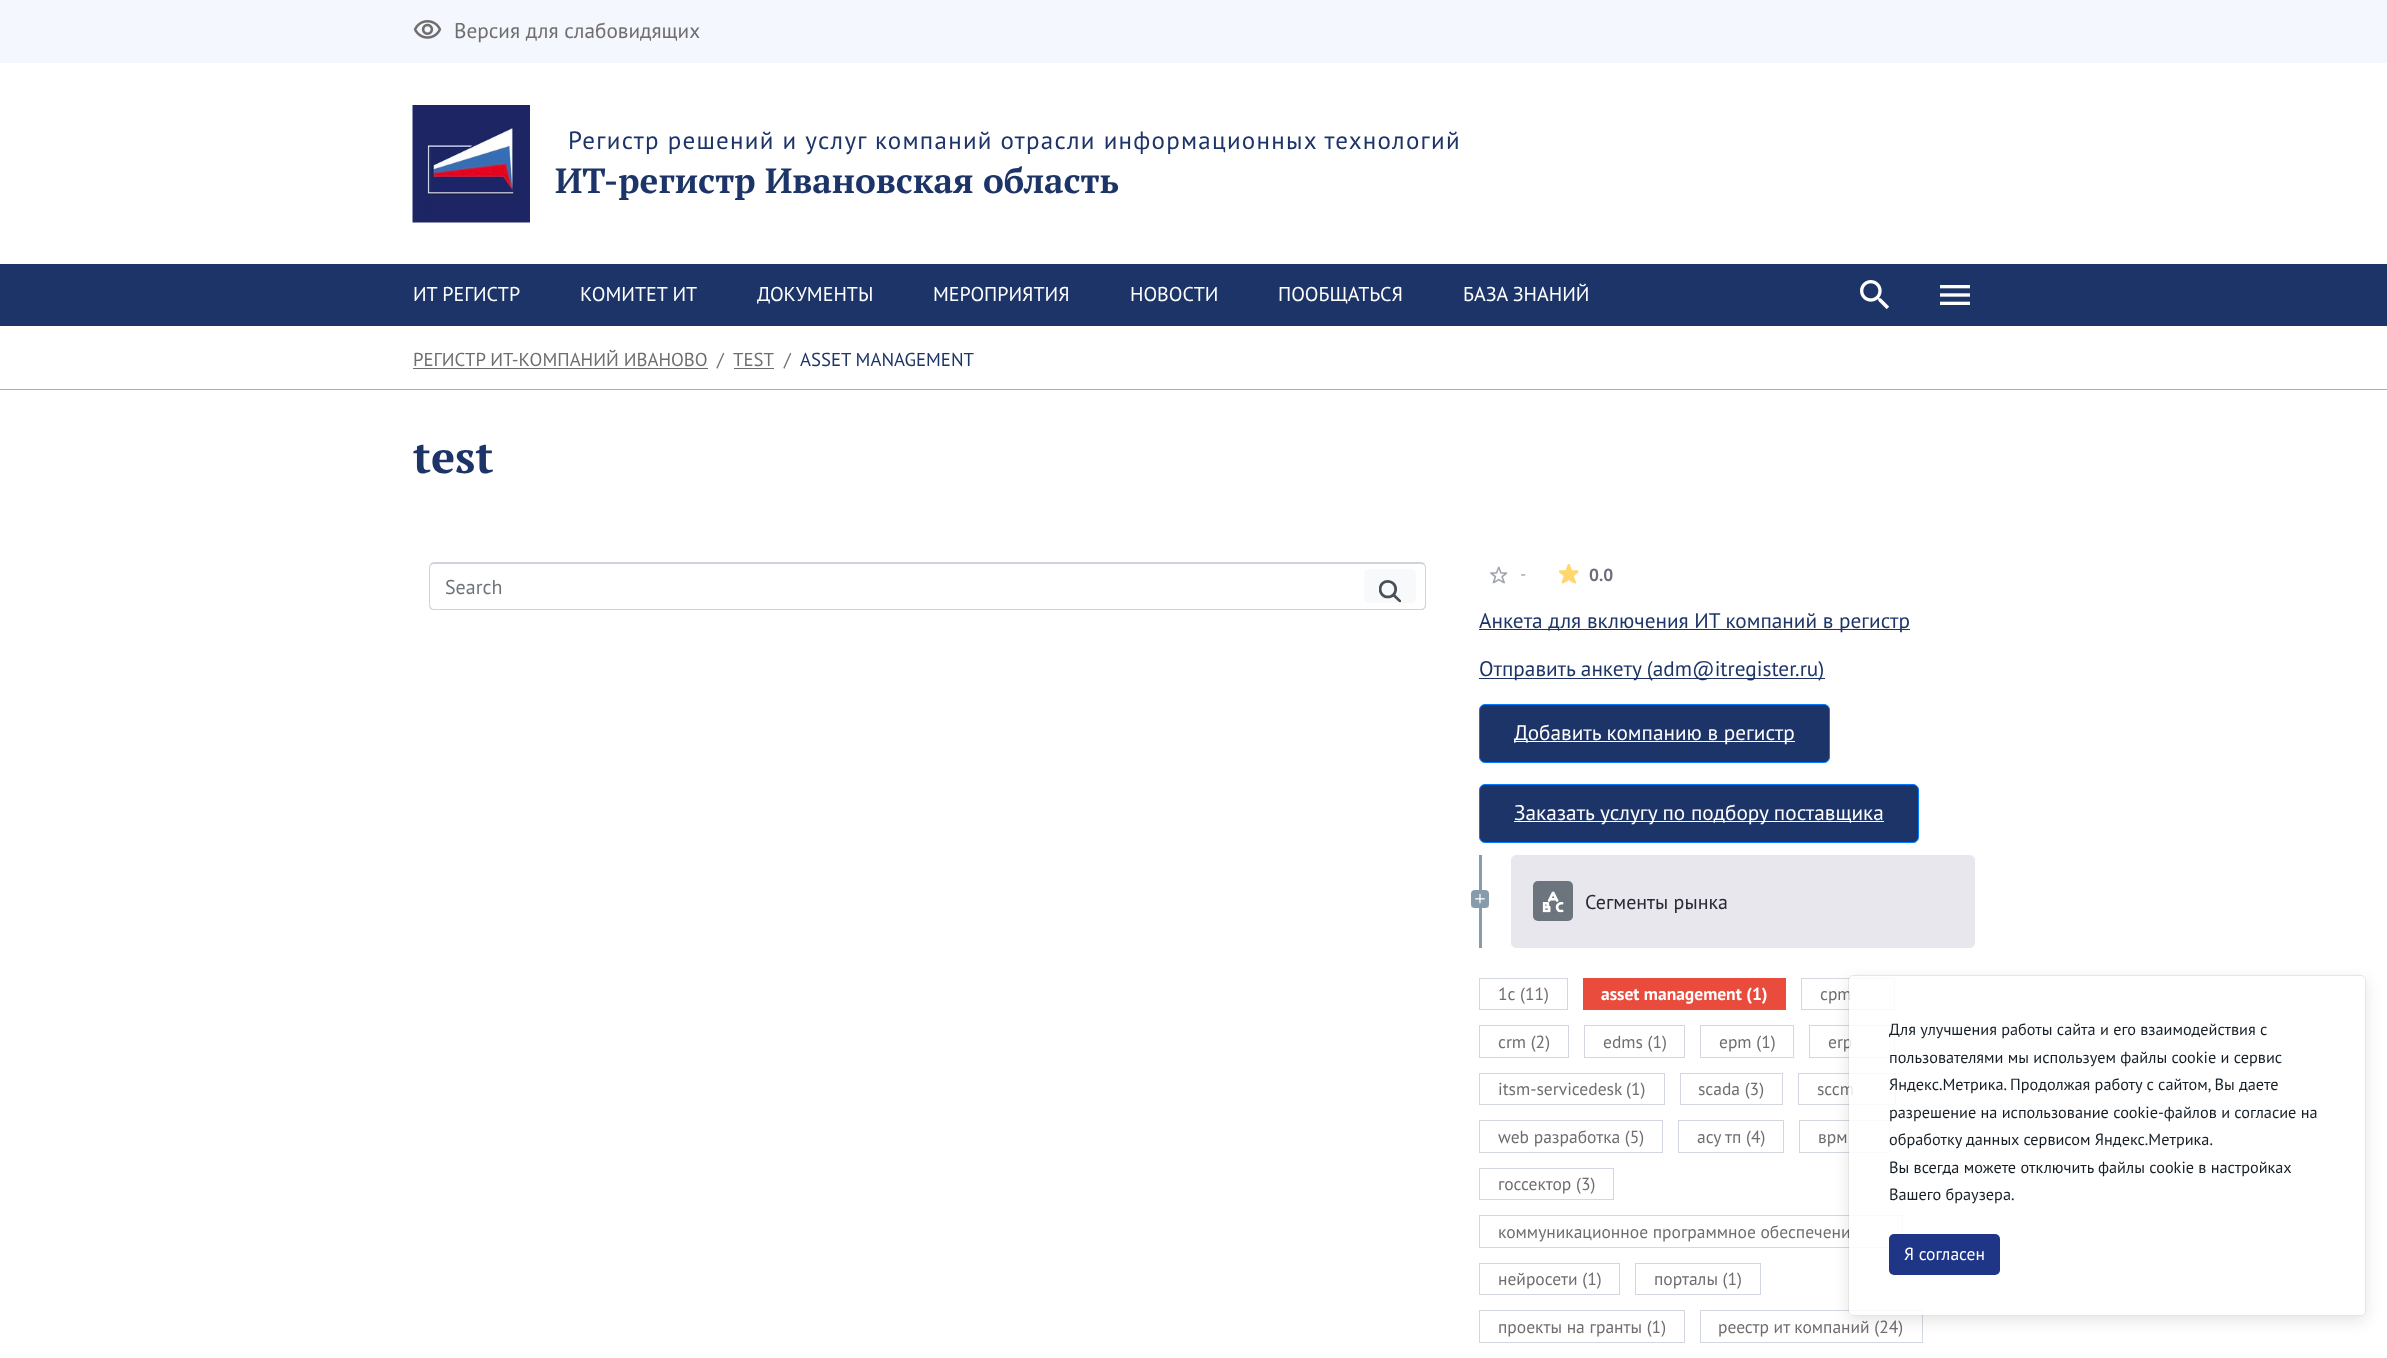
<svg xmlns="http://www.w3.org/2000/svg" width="2387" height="1358">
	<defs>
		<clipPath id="clip1"><path d="M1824 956H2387V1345H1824ZM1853 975H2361C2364 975 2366 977 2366 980V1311C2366 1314 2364 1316 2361 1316H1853C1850 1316 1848 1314 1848 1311V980C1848 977 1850 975 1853 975Z" clip-rule="evenodd" /></clipPath>
	</defs>
	<rect width="100%" height="100%" fill="#FFFFFF" />
	<rect x="0" y="0" width="2387" height="63" fill="#F4F7FD" />
	<image x="413" y="20" width="29" height="19" href="assets/img1.png" />
	<text x="454" y="38" font-family="PT Sans" font-size="21.25" fill="#706D6D">Версия для слабовидящих</text>
	<image x="412" y="105" width="118" height="118" href="assets/img2.png" />
	<text x="568" y="149" font-family="PT Sans" font-size="25" letter-spacing="1.25" fill="#1C3467">Регистр решений и услуг компаний отрасли информационных технологий</text>
	<text x="555" y="193" font-family="PT Serif" font-size="35" font-weight="700" fill="#1C3467">ИТ-регистр Ивановская область</text>
	<rect x="0" y="264" width="2387" height="62" fill="#1C3467" />
	<g font-family="PT Sans" font-size="20" fill="#FFFFFF">
		<text x="413" y="301">ИТ РЕГИСТР</text>
		<text x="580" y="301">КОМИТЕТ ИТ</text>
		<text x="757" y="301">ДОКУМЕНТЫ</text>
		<text x="933" y="301">МЕРОПРИЯТИЯ</text>
		<text x="1130" y="301">НОВОСТИ</text>
		<text x="1278" y="301">ПООБЩАТЬСЯ</text>
		<text x="1463" y="301">БАЗА ЗНАНИЙ</text>
	</g>
	<image x="1860" y="280" width="30" height="30" href="assets/img3.png" />
	<image x="1940" y="285" width="30" height="20" href="assets/img4.png" />
	<rect x="0" y="389" width="2387" height="1" fill="#A6AEBF" />
	<text x="413" y="366" font-family="PT Sans" font-size="18.75" fill="#706D6D">РЕГИСТР ИТ-КОМПАНИЙ ИВАНОВО</text>
	<rect x="413" y="368" width="295" height="1" fill="#706D6D" />
	<text x="717" y="366" font-family="PT Sans" font-size="18.75" fill="#6C757D">/</text>
	<text x="733" y="366" font-family="PT Sans" font-size="18.75" fill="#706D6D">TEST</text>
	<rect x="734" y="368" width="40" height="1" fill="#706D6D" />
	<text x="784" y="366" font-family="PT Sans" font-size="18.75" fill="#6C757D">/</text>
	<text x="800" y="366" font-family="PT Sans" font-size="18.75" fill="#1C3467">ASSET MANAGEMENT</text>
	<text x="413" y="473" font-family="PT Serif" font-size="45" font-weight="700" fill="#1C3467">test</text>
	<path d="M434 562H1355V610H434C431 610 429 608 429 605V568C429 565 431 562 434 562ZM434 564H1355V609H434C432 609 430 607 430 605V568C430 565 432 564 434 564Z" fill="#CED4DA" fill-rule="evenodd" />
	<text x="445" y="594" font-family="PT Sans" font-size="20" fill="#6C757D">Search</text>
	<path d="M1355 562H1421C1424 562 1426 565 1426 568V605C1426 608 1424 610 1421 610H1355ZM1355 564H1421C1423 564 1425 565 1425 568V605C1425 607 1423 609 1421 609H1355Z" fill="#CED4DA" fill-rule="evenodd" />
	<rect x="1364" y="569" width="52" height="34" rx="5" fill="#F8F9FA" />
	<image x="1379" y="580" width="22" height="23" href="assets/img5.png" />
	<image x="1490" y="566" width="18" height="18" href="assets/img6.png" />
	<text x="1520" y="580" font-family="PT Sans" font-size="17.5" fill="#9FA5AB">-</text>
	<image x="1559" y="564" width="20" height="20" href="assets/img7.png" />
	<text x="1589" y="581" font-family="PT Sans" font-size="17.5" font-weight="700" fill="#6B6C7E">0.0</text>
	<rect x="1479" y="629" width="431" height="1" fill="#1C3467" />
	<text x="1479" y="628" font-family="PT Sans" font-size="21.25" fill="#1C3467">Анкета для включения ИТ компаний в регистр</text>
	<rect x="1479" y="678" width="346" height="1" fill="#1C3467" />
	<text x="1479" y="676" font-family="PT Sans" font-size="21.25" fill="#1C3467">Отправить анкету (adm@itregister.ru)</text>
	<rect x="1479.5" y="704.5" width="350" height="58" rx="5.5" fill="#1C3467" stroke="#007BFF" />
	<rect x="1514" y="741" width="281" height="1" fill="#FFFFFF" />
	<text x="1514" y="740" font-family="PT Sans" font-size="21.25" fill="#FFFFFF">Добавить компанию в регистр</text>
	<rect x="1479.5" y="784.5" width="439" height="58" rx="5.5" fill="#1C3467" stroke="#007BFF" />
	<rect x="1514" y="821" width="370" height="1" fill="#FFFFFF" />
	<text x="1514" y="820" font-family="PT Sans" font-size="21.25" fill="#FFFFFF">Заказать услугу по подбору поставщика</text>
	<rect x="1479" y="855" width="3" height="93" fill="#869CAD" />
	<rect x="1471" y="904" width="18" height="4" fill="#EFEFEF" />
	<rect x="1471" y="890" width="18" height="18" rx="4" fill="#869CAD" />
	<image x="1475" y="894" width="10" height="10" href="assets/img8.png" />
	<rect x="1511.5" y="855.5" width="463" height="92" rx="4.5" fill="#E7E7ED" stroke="#E7E7ED" />
	<rect x="1533" y="881" width="40" height="40" rx="5" fill="#6C757D" />
	<image x="1542" y="891" width="22" height="22" href="assets/img9.png" />
	<text x="1585" y="909" font-family="PT Sans" font-size="20" fill="#272833">Сегменты рынка</text>
	<rect x="1479.5" y="978.5" width="88" height="31" fill="none" stroke="#D3D7DF" />
	<text x="1498" y="1000" font-family="PT Sans" font-size="17.5" fill="#706D6D">1с (11)</text>
	<rect x="1583" y="978" width="203" height="32" fill="#E94B3D" />
	<text x="1601" y="1000" font-family="PT Sans" font-size="17.5" font-weight="700" fill="#FFFFFF">asset management (1)</text>
	<rect x="1801.5" y="978.5" width="93" height="31" fill="none" stroke="#D3D7DF" />
	<text x="1820" y="1000" font-family="PT Sans" font-size="17.5" fill="#706D6D">cpm</text>
	<rect x="1479.5" y="1025.5" width="89" height="32" fill="none" stroke="#D3D7DF" />
	<text x="1498" y="1048" font-family="PT Sans" font-size="17.5" fill="#706D6D">crm (2)</text>
	<rect x="1584.5" y="1025.5" width="100" height="32" fill="none" stroke="#D3D7DF" />
	<text x="1603" y="1048" font-family="PT Sans" font-size="17.5" fill="#706D6D">edms (1)</text>
	<rect x="1700.5" y="1025.5" width="93" height="32" fill="none" stroke="#D3D7DF" />
	<text x="1719" y="1048" font-family="PT Sans" font-size="17.5" fill="#706D6D">epm (1)</text>
	<rect x="1809.5" y="1025.5" width="85" height="32" fill="none" stroke="#D3D7DF" />
	<text x="1828" y="1048" font-family="PT Sans" font-size="17.5" fill="#706D6D">erp</text>
	<rect x="1479.5" y="1073.5" width="185" height="31" fill="none" stroke="#D3D7DF" />
	<g font-family="PT Sans" font-size="17.5" fill="#706D6D">
		<text x="1498" y="1095">itsm-servicedesk</text>
		<text x="1626" y="1095">(1)</text>
	</g>
	<rect x="1680.5" y="1073.5" width="102" height="31" fill="none" stroke="#D3D7DF" />
	<text x="1698" y="1095" font-family="PT Sans" font-size="17.5" fill="#706D6D">scada (3)</text>
	<rect x="1798.5" y="1073.5" width="97" height="31" fill="none" stroke="#D3D7DF" />
	<text x="1817" y="1095" font-family="PT Sans" font-size="17.5" fill="#706D6D">sccm</text>
	<rect x="1479.5" y="1120.5" width="183" height="32" fill="none" stroke="#D3D7DF" />
	<text x="1498" y="1143" font-family="PT Sans" font-size="17.5" fill="#706D6D">web разработка (5)</text>
	<rect x="1678.5" y="1120.5" width="105" height="32" fill="none" stroke="#D3D7DF" />
	<text x="1697" y="1143" font-family="PT Sans" font-size="17.5" fill="#706D6D">асу тп (4)</text>
	<rect x="1799.5" y="1120.5" width="90" height="32" fill="none" stroke="#D3D7DF" />
	<text x="1818" y="1143" font-family="PT Sans" font-size="17.5" fill="#706D6D">врм</text>
	<rect x="1479.5" y="1168.5" width="134" height="31" fill="none" stroke="#D3D7DF" />
	<text x="1498" y="1190" font-family="PT Sans" font-size="17.5" fill="#706D6D">госсектор (3)</text>
	<rect x="1479.5" y="1215.5" width="423" height="32" fill="none" stroke="#D3D7DF" />
	<text x="1498" y="1238" font-family="PT Sans" font-size="17.5" fill="#706D6D">коммуникационное программное обеспечени</text>
	<rect x="1479.5" y="1263.5" width="140" height="31" fill="none" stroke="#D3D7DF" />
	<text x="1498" y="1285" font-family="PT Sans" font-size="17.5" fill="#706D6D">нейросети (1)</text>
	<rect x="1635.5" y="1263.5" width="125" height="31" fill="none" stroke="#D3D7DF" />
	<text x="1654" y="1285" font-family="PT Sans" font-size="17.5" fill="#706D6D">порталы (1)</text>
	<rect x="1479.5" y="1310.5" width="205" height="32" fill="none" stroke="#D3D7DF" />
	<text x="1498" y="1333" font-family="PT Sans" font-size="17.5" fill="#706D6D">проекты на гранты (1)</text>
	<rect x="1700.5" y="1310.5" width="222" height="32" fill="none" stroke="#D3D7DF" />
	<text x="1718" y="1333" font-family="PT Sans" font-size="17.5" fill="#706D6D">реестр ит компаний (24)</text>
	<g clip-path="url(#clip1)">
		<rect x="1848" y="980" width="518" height="341" rx="5" fill="#000000" fill-opacity="0.1" filter="blur(7.5px)" />
	</g>
	<rect x="1849" y="976" width="516" height="339" rx="4" fill="#FFFFFF" fill-opacity="0.85" />
	<rect x="1848.5" y="975.5" width="517" height="340" rx="4.5" fill="none" stroke="#000000" stroke-opacity="0.1" />
	<g font-family="PT Sans" font-size="16.25" fill="#161E26">
		<text x="1889" y="1035">Для улучшения работы сайта и его взаимодействия с</text>
		<text x="1889" y="1063">пользователями мы используем файлы cookie и сервис</text>
		<text x="1889" y="1090">Яндекс.Метрика. Продолжая работу с сайтом, Вы даете</text>
		<text x="1889" y="1118">разрешение на использование cookie-файлов и согласие на</text>
		<text x="1889" y="1145">обработку данных сервисом Яндекс.Метрика.</text>
		<text x="1889" y="1173">Вы всегда можете отключить</text>
		<text x="2098" y="1173">файлы cookie в настройках</text>
		<text x="1889" y="1200">Вашего браузера.</text>
	</g>
	<rect x="1889" y="1234" width="111" height="41" rx="5" fill="#1E3685" />
	<text x="1904" y="1260" font-family="PT Sans" font-size="17.5" fill="#FFFFFF">Я согласен</text>
</svg>
